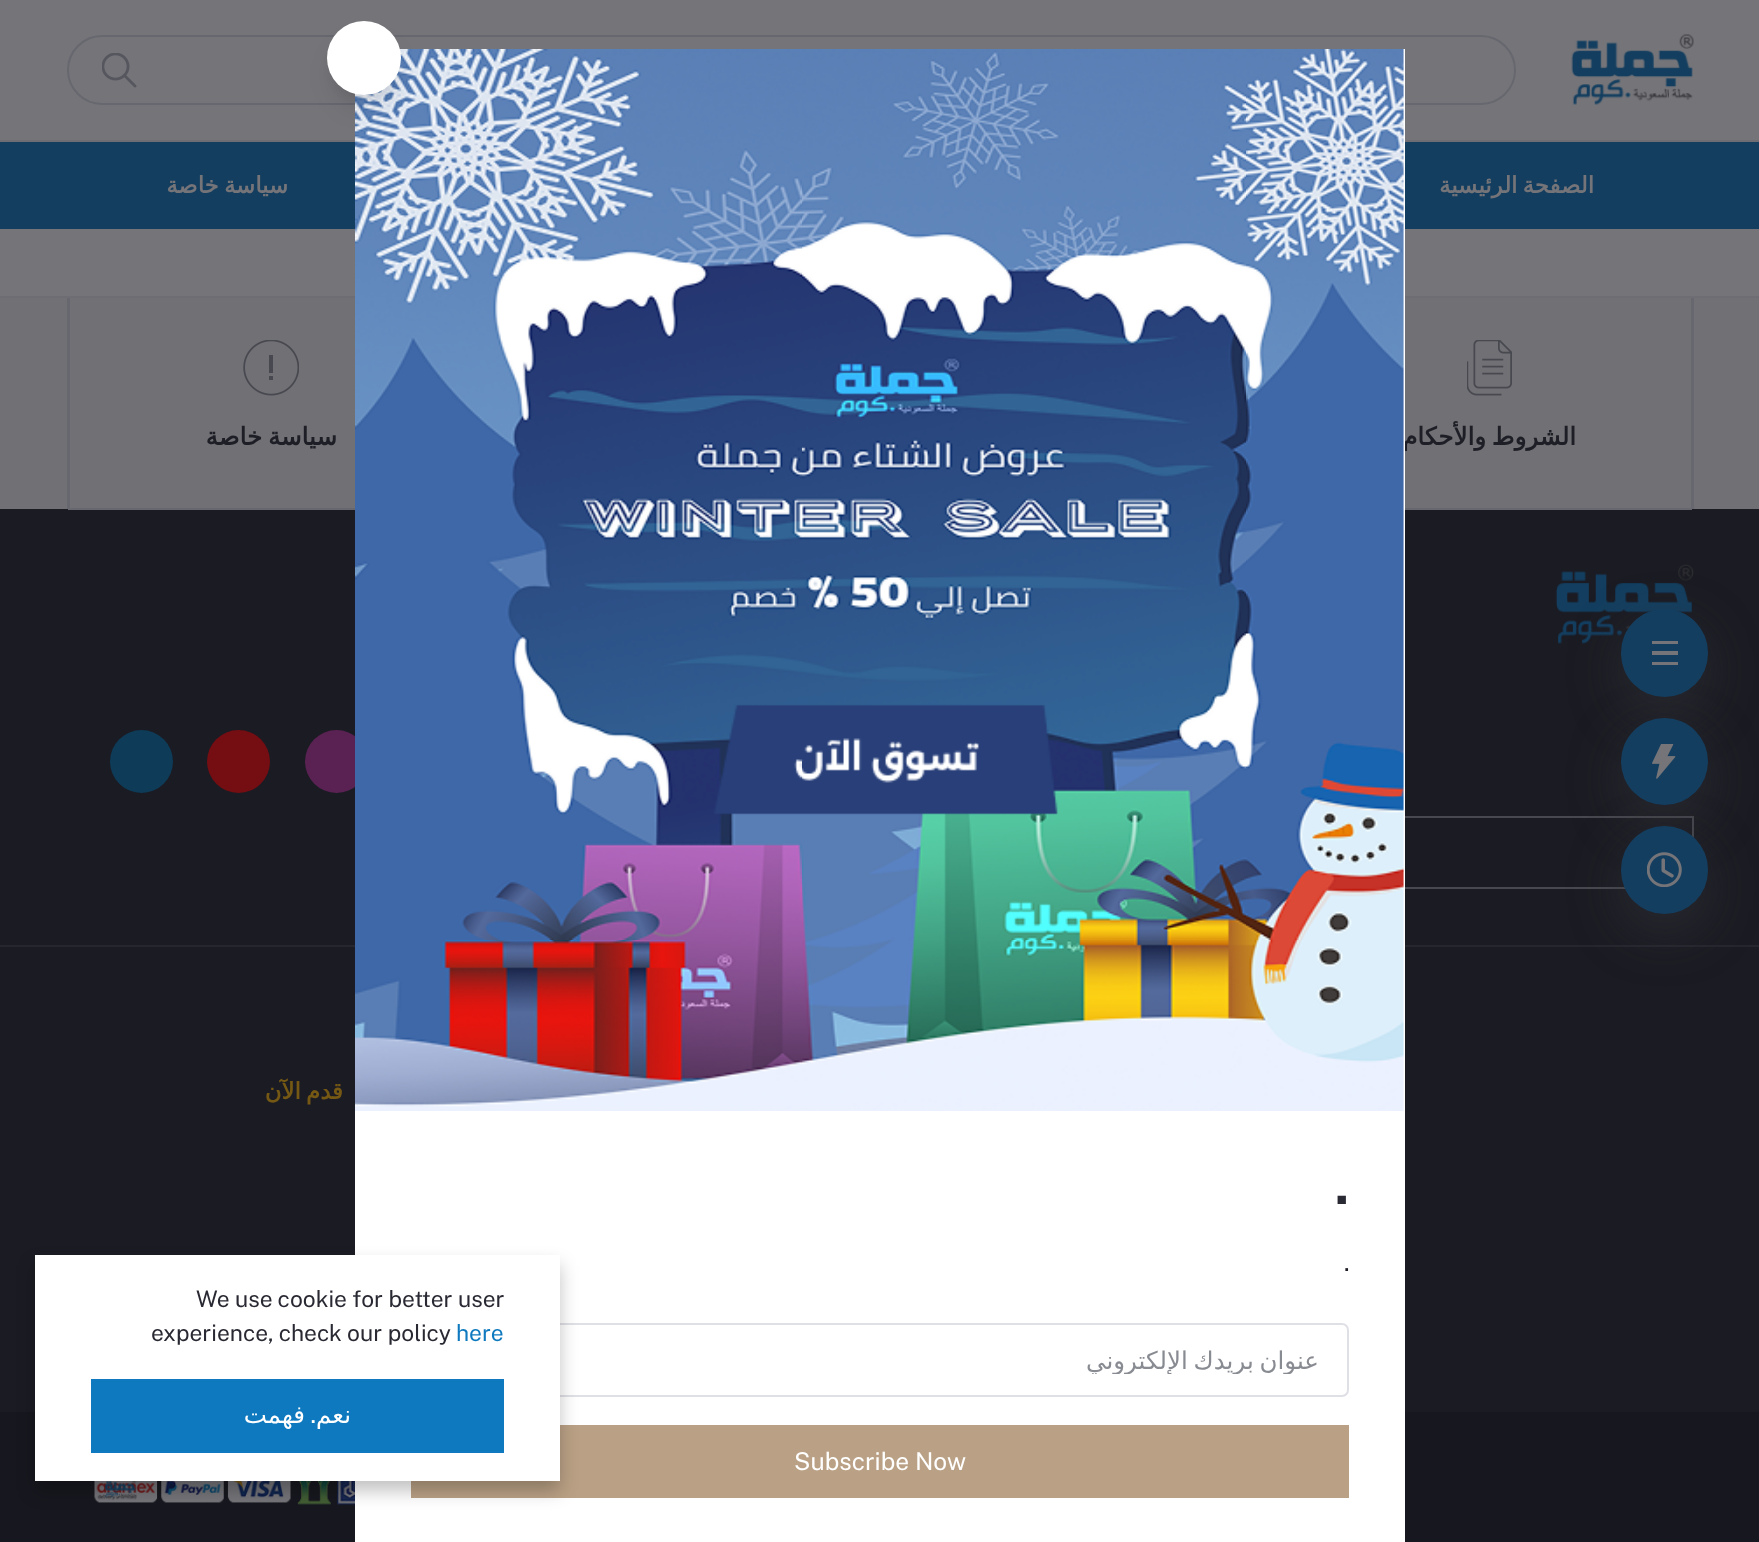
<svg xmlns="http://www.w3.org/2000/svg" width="1759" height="1542">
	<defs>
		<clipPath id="clip1"><rect x="441" y="1346" width="879" height="28" /></clipPath>
	</defs>
	<rect width="100%" height="100%" fill="#747479" />
	<rect x="0" y="509" width="1759" height="436" fill="#1B1B23" />
	<image x="1555" y="564" width="139" height="80" href="assets/img7.png" />
	<rect x="1621" y="627" width="87" height="87" rx="43.5" fill="#38383D" fill-opacity="0.5" filter="blur(26px)" />
	<rect x="1088" y="817" width="605" height="71" fill="none" stroke="#484850" stroke-width="2" />
	<rect x="1621" y="735" width="87" height="88" rx="43.5" fill="#38383D" fill-opacity="0.5" filter="blur(26px)" />
	<rect x="1621" y="609" width="87" height="88" rx="43.5" fill="#143E5F" />
	<rect x="1652" y="651" width="26" height="4" fill="#747479" />
	<rect x="1652" y="641" width="26" height="3" fill="#747479" />
	<rect x="1652" y="662" width="26" height="3" fill="#747479" />
	<rect x="0" y="945" width="1759" height="2" fill="#26262F" />
	<rect x="0" y="947" width="1759" height="465" fill="#1B1B23" />
	<rect x="1621" y="844" width="87" height="87" rx="43.5" fill="#38383D" fill-opacity="0.5" filter="blur(26px)" />
	<circle cx="1664.5" cy="761.5" r="43.5" fill="#143E5F" />
	<image x="1652" y="744" width="24" height="35" href="assets/img1.png" />
	<rect x="1621" y="826" width="87" height="88" rx="43.5" fill="#143E5F" />
	<image x="1647" y="852" width="35" height="35" href="assets/img2.png" />
	<rect x="0" y="140" width="1759" height="2" fill="#6D6D73" />
	<image x="1571" y="34" width="123" height="71" href="assets/img3.png" />
	<rect x="68" y="36" width="1447" height="68" rx="34" fill="none" stroke="#67676F" stroke-width="2" />
	<image x="102" y="53" width="35" height="35" href="assets/img4.png" />
	<rect x="0" y="142" width="1759" height="87" fill="#143E5F" />
	<g font-family="DejaVu Sans" font-size="22.75" font-weight="700" direction="rtl" fill="#747479">
		<text x="1594" y="193" word-spacing="-2">الصفحة الرئيسية</text>
		<text x="288" y="193" word-spacing="-2">سياسة خاصة</text>
	</g>
	<rect x="0" y="298" width="1759" height="211" fill="#707075" />
	<rect x="0" y="296" width="1759" height="2" fill="#6D6D73" />
	<rect x="1691" y="298" width="3" height="211" fill="#67676F" />
	<rect x="67" y="298" width="1" height="211" fill="#67676F" />
	<rect x="1405" y="508" width="287" height="2" fill="#67676F" />
	<image x="1467" y="340" width="45" height="56" href="assets/img5.png" />
	<text x="1576" y="445" word-spacing="-2" font-family="DejaVu Sans" font-size="24.5" font-weight="700" direction="rtl" fill="#1E1E27">الشروط والأحكام</text>
	<rect x="68" y="508" width="287" height="2" fill="#67676F" />
	<rect x="68" y="298" width="2" height="211" fill="#67676F" />
	<image x="243" y="340" width="56" height="56" href="assets/img6.png" />
	<text x="337" y="445" word-spacing="-2" font-family="DejaVu Sans" font-size="24.5" font-weight="700" direction="rtl" fill="#1E1E27">سياسة خاصة</text>
	<circle cx="336.5" cy="761.5" r="31.5" fill="#592253" />
	<circle cx="238.5" cy="761.5" r="31.5" fill="#740E13" />
	<circle cx="141.5" cy="761.5" r="31.5" fill="#0E3B57" />
	<text x="343" y="1099" word-spacing="-2" font-family="DejaVu Sans" font-size="22.75" font-weight="700" direction="rtl" fill="#745813">قدم الآن</text>
	<rect x="0" y="1412" width="1759" height="130" fill="#17171F" />
	<image x="94" y="1481" width="261" height="24" href="assets/img8.png" />
	<rect x="355" y="49" width="1050" height="1493" fill="#FFFFFF" />
	<image x="355" y="49" width="1049" height="1062" href="assets/img9.png" />
	<rect x="331" y="32" width="66" height="66" rx="33" fill="#000000" fill-opacity="0.05" filter="blur(5px)" />
	<rect x="333" y="44" width="63" height="63" rx="31.5" fill="#000000" fill-opacity="0.1" filter="blur(13px)" />
	<circle cx="364" cy="58" r="37" fill="#FFFFFF" />
	<text x="1335" y="1204" font-family="Public Sans" font-size="52" font-weight="700" fill="#292933">.</text>
	<text x="1344" y="1271" font-family="Public Sans" font-size="24.5" fill="#1E1E27">.</text>
	<rect x="412" y="1324" width="936" height="72" rx="6" fill="none" stroke="#DFDFE6" stroke-width="2" />
	<g clip-path="url(#clip1)">
		<text x="1319" y="1369" word-spacing="-2" font-family="DejaVu Sans" font-size="24.5" direction="rtl" fill="#898B92">عنوان بريدك الإلكتروني</text>
	</g>
	<rect x="411" y="1425" width="938" height="73" fill="#BAA185" />
	<text x="794" y="1470" font-family="Public Sans" font-size="24.5" fill="#FFFFFF">Subscribe Now</text>
	<rect x="35" y="1265" width="525" height="226" fill="#000000" fill-opacity="0.24" filter="blur(9px)" />
	<rect x="35" y="1255" width="525" height="226" fill="#FFFFFF" />
	<text x="196" y="1307" font-family="Public Sans" font-size="22.75" fill="#292933">We use cookie for better user</text>
	<text x="456" y="1341" font-family="Public Sans" font-size="22.75" fill="#0F79BF">here</text>
	<text x="151" y="1341" font-family="Public Sans" font-size="22.75" fill="#292933">experience, check our policy</text>
	<rect x="91" y="1379" width="413" height="74" fill="#0F79BF" />
	<text x="351" y="1423" font-family="DejaVu Sans" font-size="24.5" direction="rtl" fill="#FFFFFF">نعم</text>
	<text x="316" y="1423" font-family="Public Sans" font-size="24.5" direction="rtl" fill="#FFFFFF">.</text>
	<text x="305" y="1423" font-family="DejaVu Sans" font-size="24.5" direction="rtl" fill="#FFFFFF">فهمت</text>
</svg>
